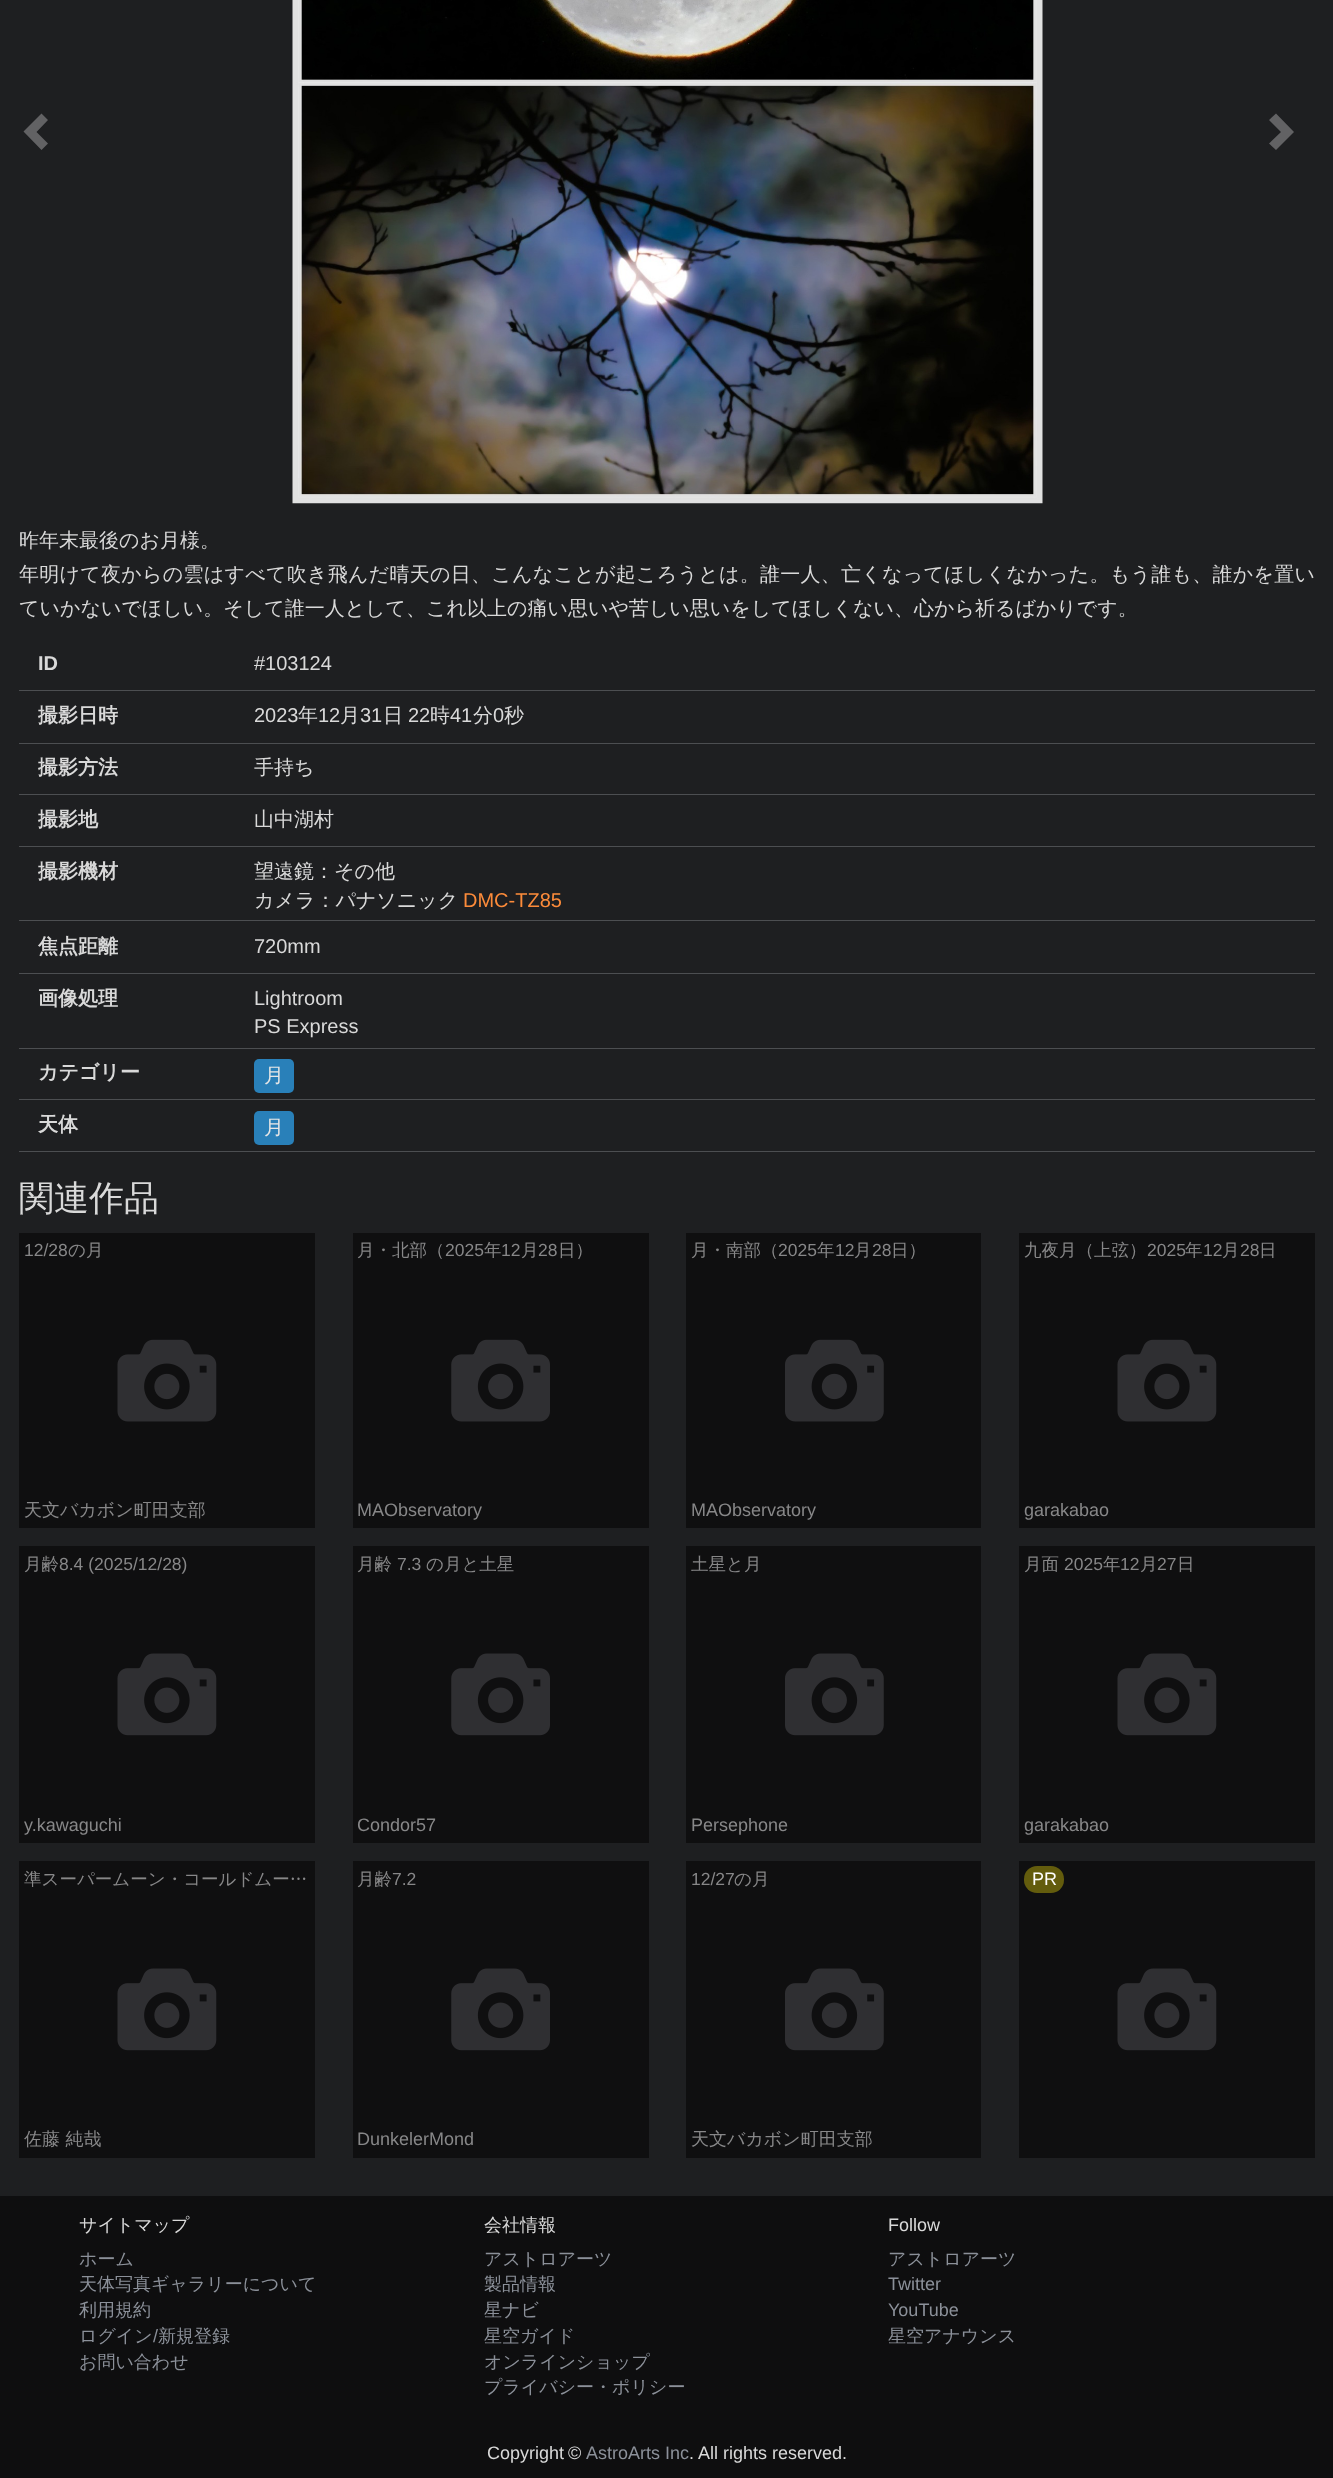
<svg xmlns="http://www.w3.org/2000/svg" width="1333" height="2478">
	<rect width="100%" height="100%" fill="#1E1F21" />
	<path d="M48 120L36.5 132L48 143.5L41.5 150L23.5 131.5L41.5 113.5Z" fill="#626264" />
	<image x="292" y="0" width="751" height="504" href="assets/img1.png" />
	<path d="M1294 132L1276 150L1269 143.5L1281 132L1269 120L1276 113.5Z" fill="#626264" />
	<text x="19" y="547" font-family="WenQuanYi Zen Hei" font-size="20" font-weight="500" fill="#D9D9D9">昨年末最後のお月様。</text>
	<text x="19" y="581" font-family="WenQuanYi Zen Hei" font-size="20" font-weight="500" letter-spacing="0.27" fill="#D9D9D9">年明けて夜からの雲はすべて吹き飛んだ晴天の日、こんなことが起ころうとは。誰一人、亡くなってほしくなかった。もう誰も、誰かを置い</text>
	<text x="19" y="615" font-family="WenQuanYi Zen Hei" font-size="20" font-weight="500" fill="#D9D9D9">ていかないでほしい。そして誰一人として、これ以上の痛い思いや苦しい思いをしてほしくない、心から祈るばかりです。</text>
	<rect x="19" y="690" width="1296" height="1" fill="#4C4E51" />
	<text x="38" y="670" font-family="Liberation Sans" font-size="20" font-weight="700" fill="#D9D9D9">ID</text>
	<text x="254" y="670" font-family="Liberation Sans" font-size="20" fill="#D9D9D9">#103124</text>
	<rect x="19" y="743" width="1296" height="1" fill="#4C4E51" />
	<text x="38" y="722" font-family="WenQuanYi Zen Hei" font-size="20" font-weight="700" fill="#D9D9D9">撮影日時</text>
	<text x="254" y="722" font-family="Liberation Sans" font-size="20" fill="#D9D9D9">2023</text>
	<text x="298" y="722" font-family="WenQuanYi Zen Hei" font-size="20" font-weight="500" fill="#D9D9D9">年</text>
	<text x="318" y="722" font-family="Liberation Sans" font-size="20" fill="#D9D9D9">12</text>
	<text x="340" y="722" font-family="WenQuanYi Zen Hei" font-size="20" font-weight="500" fill="#D9D9D9">月</text>
	<text x="360" y="722" font-family="Liberation Sans" font-size="20" fill="#D9D9D9">31</text>
	<text x="383" y="722" font-family="WenQuanYi Zen Hei" font-size="20" font-weight="500" fill="#D9D9D9">日</text>
	<text x="408" y="722" font-family="Liberation Sans" font-size="20" fill="#D9D9D9">22</text>
	<text x="430" y="722" font-family="WenQuanYi Zen Hei" font-size="20" font-weight="500" fill="#D9D9D9">時</text>
	<text x="450" y="722" font-family="Liberation Sans" font-size="20" fill="#D9D9D9">41</text>
	<text x="473" y="722" font-family="WenQuanYi Zen Hei" font-size="20" font-weight="500" fill="#D9D9D9">分</text>
	<text x="493" y="722" font-family="Liberation Sans" font-size="20" fill="#D9D9D9">0</text>
	<text x="504" y="722" font-family="WenQuanYi Zen Hei" font-size="20" font-weight="500" fill="#D9D9D9">秒</text>
	<rect x="19" y="794" width="1296" height="1" fill="#4C4E51" />
	<text x="38" y="774" font-family="WenQuanYi Zen Hei" font-size="20" font-weight="700" fill="#D9D9D9">撮影方法</text>
	<text x="254" y="774" font-family="WenQuanYi Zen Hei" font-size="20" font-weight="500" fill="#D9D9D9">手持ち</text>
	<rect x="19" y="846" width="1296" height="1" fill="#4C4E51" />
	<text x="38" y="826" font-family="WenQuanYi Zen Hei" font-size="20" font-weight="700" fill="#D9D9D9">撮影地</text>
	<text x="254" y="826" font-family="WenQuanYi Zen Hei" font-size="20" font-weight="500" fill="#D9D9D9">山中湖村</text>
	<rect x="19" y="920" width="1296" height="1" fill="#4C4E51" />
	<text x="38" y="878" font-family="WenQuanYi Zen Hei" font-size="20" font-weight="700" fill="#D9D9D9">撮影機材</text>
	<g font-family="WenQuanYi Zen Hei" font-size="20" font-weight="500" fill="#D9D9D9">
		<text x="254" y="878">望遠鏡：その他</text>
		<text x="254" y="907">カメラ：パナソニック</text>
	</g>
	<text x="463" y="907" font-family="Liberation Sans" font-size="20" fill="#FC8B3A">DMC-TZ85</text>
	<rect x="19" y="973" width="1296" height="1" fill="#4C4E51" />
	<text x="38" y="953" font-family="WenQuanYi Zen Hei" font-size="20" font-weight="700" fill="#D9D9D9">焦点距離</text>
	<text x="254" y="953" font-family="Liberation Sans" font-size="20" fill="#D9D9D9">720mm</text>
	<rect x="19" y="1048" width="1296" height="1" fill="#4C4E51" />
	<text x="38" y="1005" font-family="WenQuanYi Zen Hei" font-size="20" font-weight="700" fill="#D9D9D9">画像処理</text>
	<g font-family="Liberation Sans" font-size="20" fill="#D9D9D9">
		<text x="254" y="1005">Lightroom</text>
		<text x="254" y="1033">PS Express</text>
	</g>
	<rect x="19" y="1099" width="1296" height="1" fill="#4C4E51" />
	<text x="38" y="1079" font-family="WenQuanYi Zen Hei" font-size="20" font-weight="700" fill="#D9D9D9">カテゴリー</text>
	<rect x="254" y="1059" width="40" height="34" rx="5" fill="#2980B9" />
	<text x="264" y="1082" font-family="WenQuanYi Zen Hei" font-size="20" font-weight="500" fill="#E6E6E6">月</text>
	<rect x="19" y="1151" width="1296" height="1" fill="#4C4E51" />
	<text x="38" y="1131" font-family="WenQuanYi Zen Hei" font-size="20" font-weight="700" fill="#D9D9D9">天体</text>
	<rect x="254" y="1111" width="40" height="34" rx="5" fill="#2980B9" />
	<text x="264" y="1134" font-family="WenQuanYi Zen Hei" font-size="20" font-weight="500" fill="#E6E6E6">月</text>
	<text x="19" y="1210" font-family="WenQuanYi Zen Hei" font-size="35" font-weight="500" fill="#D9D9D9">関連作品</text>
	<image x="19" y="1233" width="296" height="295" href="assets/img2.png" />
	<text x="24" y="1256" font-family="Liberation Sans" font-size="17.5" fill="#878788">12/28</text>
	<text x="68" y="1256" font-family="WenQuanYi Zen Hei" font-size="17.5" font-weight="500" fill="#878788">の月</text>
	<text x="24" y="1516" font-family="WenQuanYi Zen Hei" font-size="18" font-weight="500" fill="#878788">天文バカボン町田支部</text>
	<image x="353" y="1233" width="296" height="295" href="assets/img3.png" />
	<text x="357" y="1256" font-family="WenQuanYi Zen Hei" font-size="17.5" font-weight="500" fill="#878788">月・北部（</text>
	<text x="445" y="1256" font-family="Liberation Sans" font-size="17.5" fill="#878788">2025</text>
	<text x="484" y="1256" font-family="WenQuanYi Zen Hei" font-size="17.5" font-weight="500" fill="#878788">年</text>
	<text x="501" y="1256" font-family="Liberation Sans" font-size="17.5" fill="#878788">12</text>
	<text x="521" y="1256" font-family="WenQuanYi Zen Hei" font-size="17.5" font-weight="500" fill="#878788">月</text>
	<text x="538" y="1256" font-family="Liberation Sans" font-size="17.5" fill="#878788">28</text>
	<text x="558" y="1256" font-family="WenQuanYi Zen Hei" font-size="17.5" font-weight="500" fill="#878788">日）</text>
	<text x="357" y="1516" font-family="Liberation Sans" font-size="18" fill="#878788">MAObservatory</text>
	<image x="686" y="1233" width="295" height="295" href="assets/img4.png" />
	<text x="691" y="1256" font-family="WenQuanYi Zen Hei" font-size="17.5" font-weight="500" fill="#878788">月・南部（</text>
	<text x="778" y="1256" font-family="Liberation Sans" font-size="17.5" fill="#878788">2025</text>
	<text x="817" y="1256" font-family="WenQuanYi Zen Hei" font-size="17.5" font-weight="500" fill="#878788">年</text>
	<text x="835" y="1256" font-family="Liberation Sans" font-size="17.5" fill="#878788">12</text>
	<text x="854" y="1256" font-family="WenQuanYi Zen Hei" font-size="17.5" font-weight="500" fill="#878788">月</text>
	<text x="872" y="1256" font-family="Liberation Sans" font-size="17.5" fill="#878788">28</text>
	<text x="891" y="1256" font-family="WenQuanYi Zen Hei" font-size="17.5" font-weight="500" fill="#878788">日）</text>
	<text x="691" y="1516" font-family="Liberation Sans" font-size="18" fill="#878788">MAObservatory</text>
	<image x="1019" y="1233" width="296" height="295" href="assets/img2.png" />
	<text x="1024" y="1256" font-family="WenQuanYi Zen Hei" font-size="17.5" font-weight="500" fill="#878788">九夜月（上弦）</text>
	<text x="1147" y="1256" font-family="Liberation Sans" font-size="17.5" fill="#878788">2025</text>
	<text x="1185" y="1256" font-family="WenQuanYi Zen Hei" font-size="17.5" font-weight="500" fill="#878788">年</text>
	<text x="1203" y="1256" font-family="Liberation Sans" font-size="17.5" fill="#878788">12</text>
	<text x="1222" y="1256" font-family="WenQuanYi Zen Hei" font-size="17.5" font-weight="500" fill="#878788">月</text>
	<text x="1240" y="1256" font-family="Liberation Sans" font-size="17.5" fill="#878788">28</text>
	<text x="1259" y="1256" font-family="WenQuanYi Zen Hei" font-size="17.5" font-weight="500" fill="#878788">日</text>
	<text x="1024" y="1516" font-family="Liberation Sans" font-size="18" fill="#878788">garakabao</text>
	<image x="19" y="1546" width="296" height="297" href="assets/img5.png" />
	<text x="24" y="1570" font-family="WenQuanYi Zen Hei" font-size="17.5" font-weight="500" fill="#878788">月齢</text>
	<text x="59" y="1570" font-family="Liberation Sans" font-size="17.5" fill="#878788">8.4 (2025/12/28)</text>
	<text x="24" y="1831" font-family="Liberation Sans" font-size="18" fill="#878788">y.kawaguchi</text>
	<image x="353" y="1546" width="296" height="297" href="assets/img6.png" />
	<text x="357" y="1570" font-family="WenQuanYi Zen Hei" font-size="17.5" font-weight="500" fill="#878788">月齢</text>
	<text x="397" y="1570" font-family="Liberation Sans" font-size="17.5" fill="#878788">7.3</text>
	<text x="426" y="1570" font-family="WenQuanYi Zen Hei" font-size="17.5" font-weight="500" fill="#878788">の月と土星</text>
	<text x="357" y="1831" font-family="Liberation Sans" font-size="18" fill="#878788">Condor57</text>
	<image x="686" y="1546" width="295" height="297" href="assets/img7.png" />
	<text x="691" y="1570" font-family="WenQuanYi Zen Hei" font-size="17.5" font-weight="500" fill="#878788">土星と月</text>
	<text x="691" y="1831" font-family="Liberation Sans" font-size="18" fill="#878788">Persephone</text>
	<image x="1019" y="1546" width="296" height="297" href="assets/img5.png" />
	<text x="1024" y="1570" font-family="WenQuanYi Zen Hei" font-size="17.5" font-weight="500" fill="#878788">月面</text>
	<text x="1064" y="1570" font-family="Liberation Sans" font-size="17.5" fill="#878788">2025</text>
	<text x="1103" y="1570" font-family="WenQuanYi Zen Hei" font-size="17.5" font-weight="500" fill="#878788">年</text>
	<text x="1120" y="1570" font-family="Liberation Sans" font-size="17.5" fill="#878788">12</text>
	<text x="1140" y="1570" font-family="WenQuanYi Zen Hei" font-size="17.5" font-weight="500" fill="#878788">月</text>
	<text x="1157" y="1570" font-family="Liberation Sans" font-size="17.5" fill="#878788">27</text>
	<text x="1177" y="1570" font-family="WenQuanYi Zen Hei" font-size="17.5" font-weight="500" fill="#878788">日</text>
	<text x="1024" y="1831" font-family="Liberation Sans" font-size="18" fill="#878788">garakabao</text>
	<image x="19" y="1861" width="296" height="297" href="assets/img5.png" />
	<text x="24" y="1885" font-family="WenQuanYi Zen Hei" font-size="17.5" font-weight="500" fill="#878788">準スーパームーン・コールドムー…</text>
	<text x="24" y="2145" font-family="WenQuanYi Zen Hei" font-size="18" font-weight="500" fill="#878788">佐藤 純哉</text>
	<image x="353" y="1861" width="296" height="297" href="assets/img6.png" />
	<text x="357" y="1885" font-family="WenQuanYi Zen Hei" font-size="17.5" font-weight="500" fill="#878788">月齢</text>
	<text x="392" y="1885" font-family="Liberation Sans" font-size="17.5" fill="#878788">7.2</text>
	<text x="357" y="2145" font-family="Liberation Sans" font-size="18" fill="#878788">DunkelerMond</text>
	<image x="686" y="1861" width="295" height="297" href="assets/img7.png" />
	<text x="691" y="1885" font-family="Liberation Sans" font-size="17.5" fill="#878788">12/27</text>
	<text x="734" y="1885" font-family="WenQuanYi Zen Hei" font-size="17.5" font-weight="500" fill="#878788">の月</text>
	<text x="691" y="2145" font-family="WenQuanYi Zen Hei" font-size="18" font-weight="500" fill="#878788">天文バカボン町田支部</text>
	<image x="1019" y="1861" width="296" height="297" href="assets/img5.png" />
	<rect x="1024" y="1866" width="40" height="27" rx="13" fill="#635C0D" />
	<text x="1032" y="1885" font-family="Liberation Sans" font-size="18" fill="#FFFFFF">PR</text>
	<rect x="0" y="2196" width="1333" height="282" fill="#0E0E0F" />
	<text x="79" y="2231" font-family="WenQuanYi Zen Hei" font-size="18" font-weight="500" fill="#D9D9D9">サイトマップ</text>
	<g font-family="WenQuanYi Zen Hei" font-size="18" font-weight="500" fill="#8B9099">
		<text x="79" y="2265">ホーム</text>
		<text x="79" y="2290">天体写真ギャラリーについて</text>
		<text x="79" y="2316">利用規約</text>
		<text x="79" y="2342">ログイン</text>
	</g>
	<text x="153" y="2342" font-family="Liberation Sans" font-size="18" fill="#8B9099">/</text>
	<g font-family="WenQuanYi Zen Hei" font-size="18" font-weight="500" fill="#8B9099">
		<text x="158" y="2342">新規登録</text>
		<text x="79" y="2368">お問い合わせ</text>
	</g>
	<text x="484" y="2231" font-family="WenQuanYi Zen Hei" font-size="18" font-weight="500" fill="#D9D9D9">会社情報</text>
	<g font-family="WenQuanYi Zen Hei" font-size="18" font-weight="500" fill="#8B9099">
		<text x="484" y="2265">アストロアーツ</text>
		<text x="484" y="2290">製品情報</text>
		<text x="484" y="2316">星ナビ</text>
		<text x="484" y="2342">星空ガイド</text>
		<text x="484" y="2368">オンラインショップ</text>
		<text x="484" y="2393">プライバシー・ポリシー</text>
	</g>
	<text x="888" y="2231" font-family="Liberation Sans" font-size="18" fill="#D9D9D9">Follow</text>
	<text x="888" y="2265" font-family="WenQuanYi Zen Hei" font-size="18" font-weight="500" fill="#8B9099">アストロアーツ</text>
	<g font-family="Liberation Sans" font-size="18" fill="#8B9099">
		<text x="888" y="2290">Twitter</text>
		<text x="888" y="2316">YouTube</text>
	</g>
	<text x="888" y="2342" font-family="WenQuanYi Zen Hei" font-size="18" font-weight="500" fill="#8B9099">星空アナウンス</text>
	<text x="487" y="2459" word-spacing="-1" font-family="Liberation Sans" font-size="18" fill="#D9D9D9">Copyright ©</text>
	<text x="586" y="2459" font-family="Liberation Sans" font-size="18" fill="#8B9099">AstroArts Inc</text>
	<text x="689" y="2459" font-family="Liberation Sans" font-size="18" fill="#D9D9D9">. All rights reserved.</text>
</svg>
